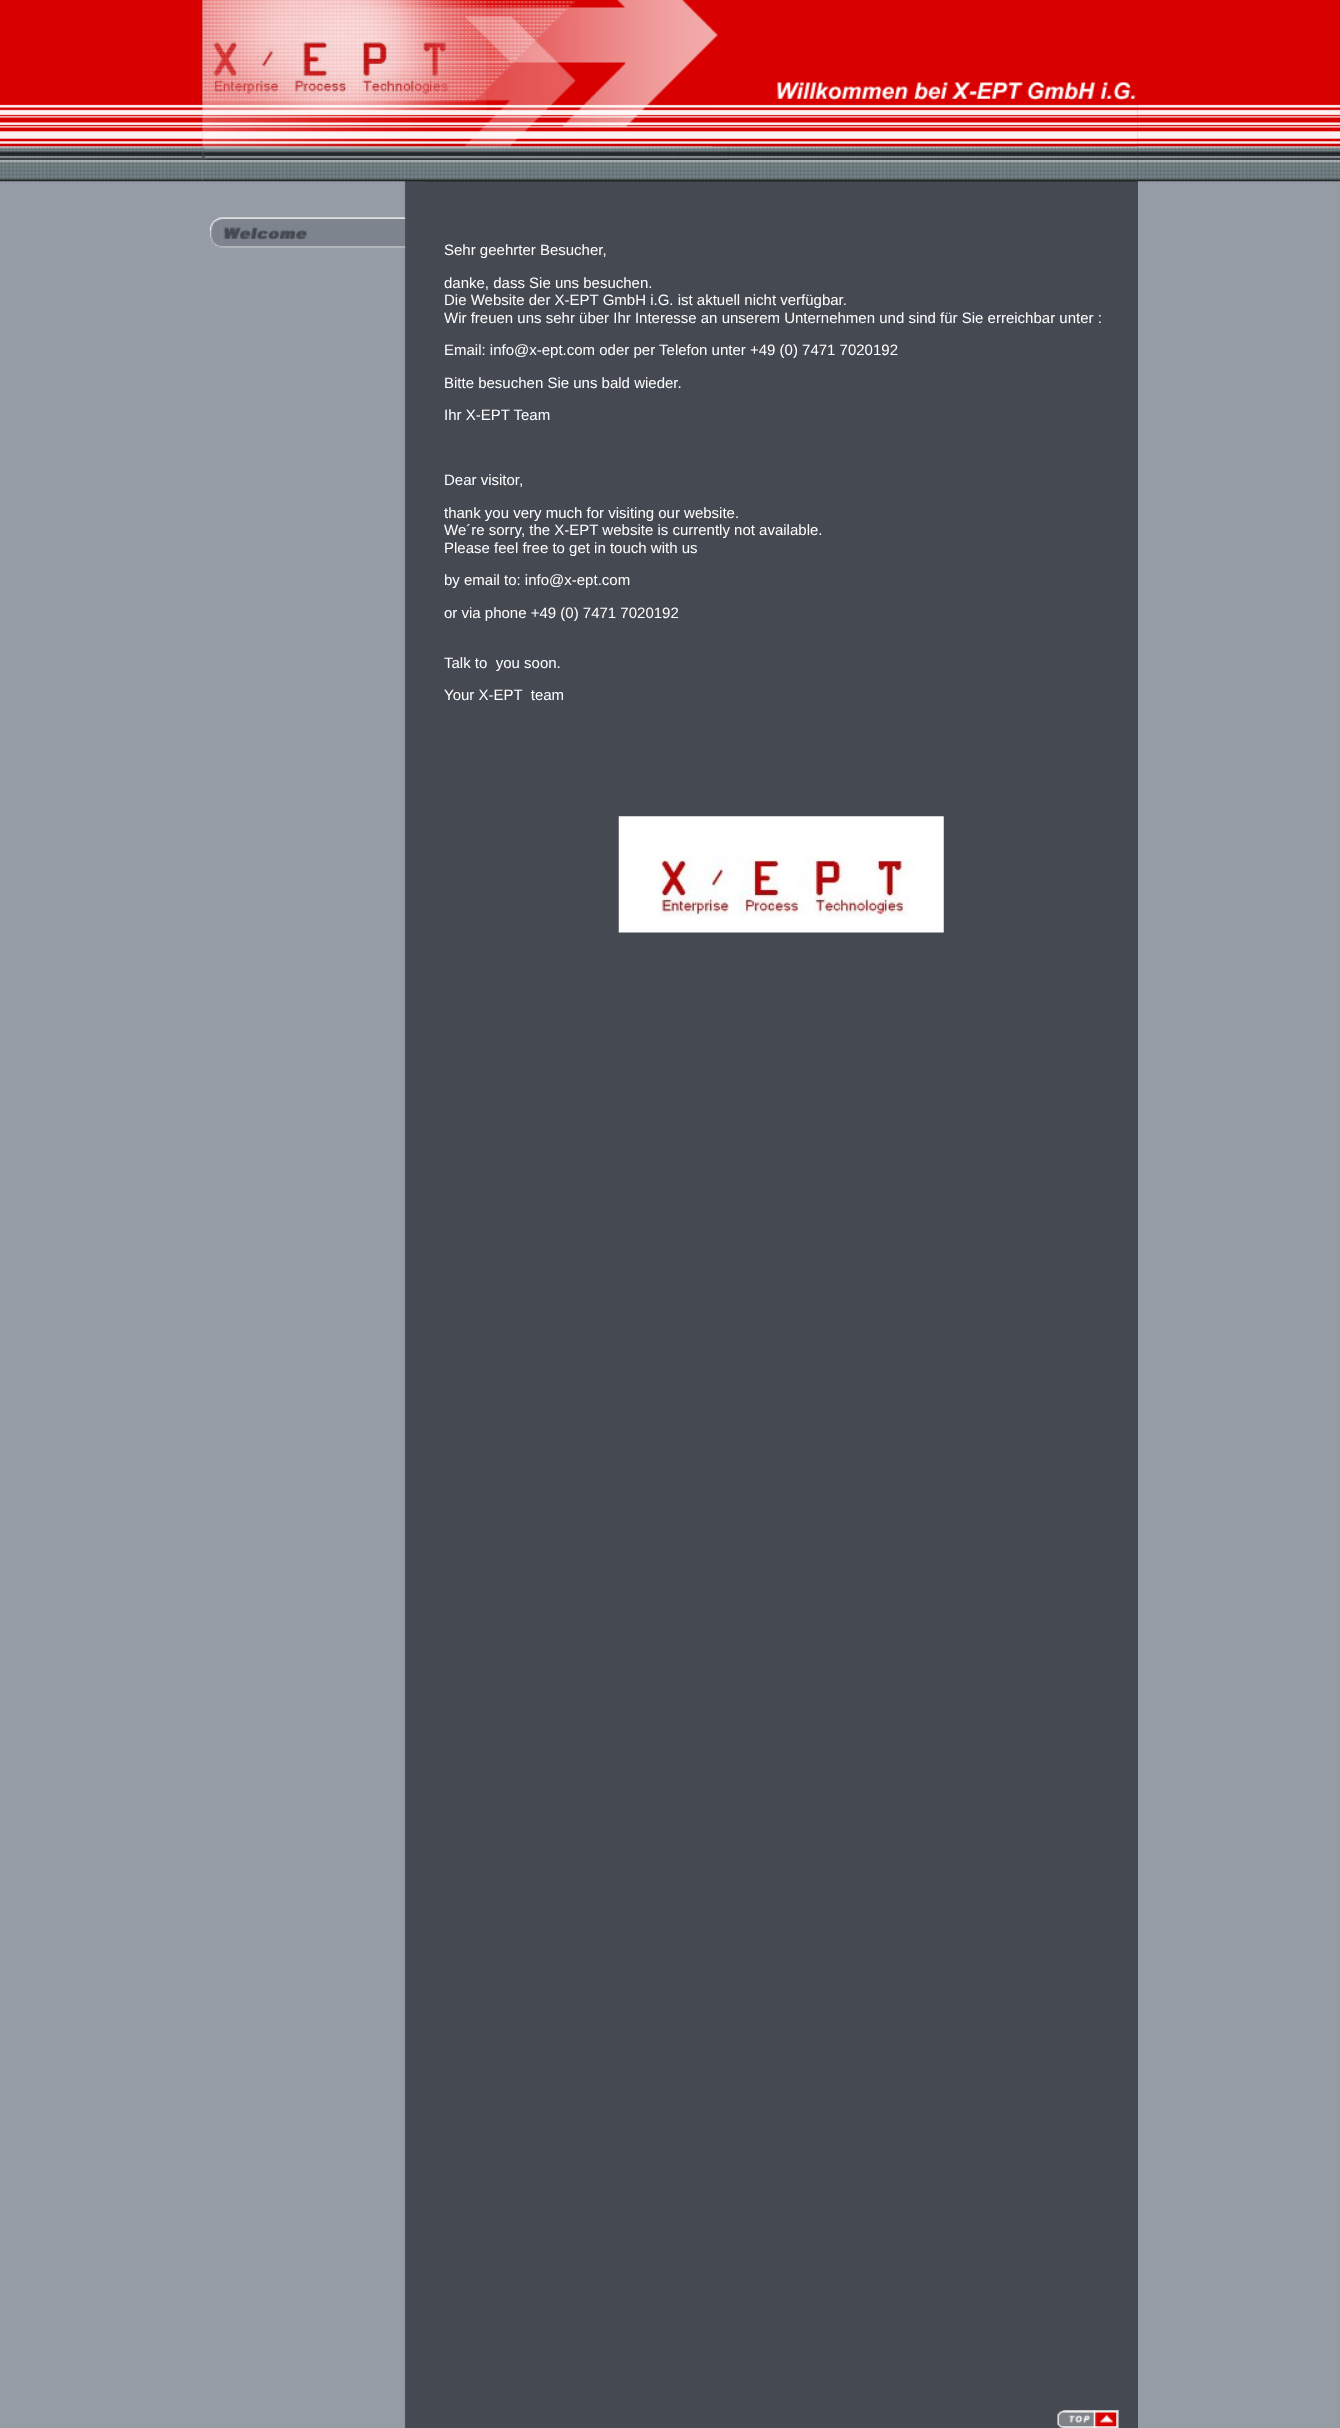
<svg xmlns="http://www.w3.org/2000/svg" width="1340" height="2428">
	<rect width="100%" height="100%" fill="#959CA6" />
	<image x="0" y="0" width="1340" height="182" href="assets/img1.png" />
	<image x="202" y="0" width="1" height="182" href="assets/img2.png" />
	<image x="202" y="0" width="223" height="2428" href="assets/img5.png" />
	<rect x="425" y="0" width="713" height="2428" fill="#454952" />
	<image x="425" y="0" width="713" height="182" href="assets/img8.png" />
	<image x="202" y="0" width="936" height="182" href="assets/img3.png" />
	<image x="202" y="0" width="527" height="160" href="assets/img4.png" />
	<image x="209" y="217" width="13" height="31" href="assets/img6.png" />
	<image x="221" y="217" width="185" height="31" href="assets/img7.png" />
	<image x="712" y="81" width="426" height="66" href="assets/img9.png" />
	<g font-family="Liberation Sans" font-size="15" fill="#FFFFFF">
		<text x="444" y="255">Sehr geehrter Besucher,</text>
		<text x="444" y="288">danke, dass Sie uns besuchen.</text>
		<text x="444" y="305">Die Website der X-EPT GmbH i.G. ist aktuell nicht verfügbar.</text>
		<text x="444" y="323">Wir freuen uns sehr über Ihr Interesse an unserem Unternehmen und sind für Sie erreichbar unter :</text>
		<text x="444" y="355">Email: info@x-ept.com oder per Telefon unter +49 (0) 7471 7020192</text>
		<text x="444" y="388">Bitte besuchen Sie uns bald wieder.</text>
		<text x="444" y="420">Ihr X-EPT Team</text>
		<text x="444" y="485">Dear visitor,</text>
		<text x="444" y="518">thank you very much for visiting our website.</text>
		<text x="444" y="535">We´re sorry, the X-EPT website is currently not available.</text>
		<text x="444" y="553">Please feel free to get in touch with us</text>
		<text x="444" y="585">by email to: info@x-ept.com</text>
		<text x="444" y="618">or via phone +49 (0) 7471 7020192</text>
		<text x="444" y="668" xml:space="preserve">Talk to  you soon.</text>
		<text x="444" y="700" xml:space="preserve">Your X-EPT  team</text>
	</g>
	<image x="618" y="816" width="326" height="117" href="assets/img10.png" />
	<image x="1057" y="2410" width="62" height="18" href="assets/img11.png" />
</svg>
